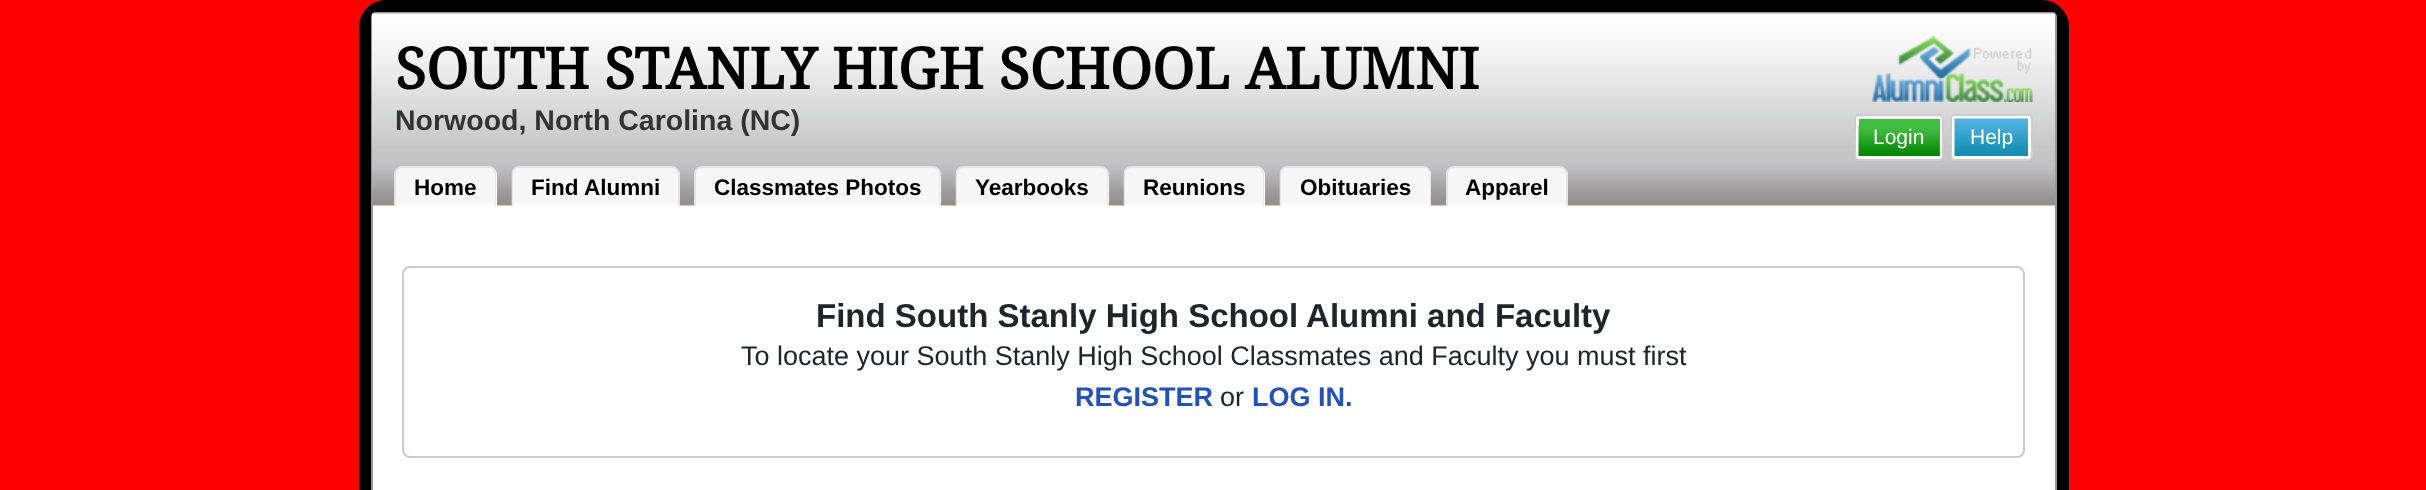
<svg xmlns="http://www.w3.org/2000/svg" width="2426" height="490">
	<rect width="100%" height="100%" fill="#FF0000" />
	<rect x="365" y="6" width="1698" height="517" rx="21" fill="none" stroke="#000000" stroke-width="12" />
	<rect x="372" y="13" width="1684" height="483" rx="4" fill="#FFFFFF" stroke="#999999" stroke-width="2" />
	<image x="372" y="13" width="1683" height="193" href="assets/img1.png" />
	<text x="395" y="89" font-family="Droid Serif" font-size="57" font-weight="700" fill="#000000">SOUTH STANLY HIGH SCHOOL ALUMNI</text>
	<text x="395" y="130" font-family="Liberation Sans" font-size="28.5" font-weight="700" fill="#333333">Norwood, North Carolina (NC)</text>
	<image x="1872" y="36" width="161" height="66" href="assets/img2.png" />
	<rect x="1855" y="115" width="88" height="45" rx="4" fill="#FFFFFF" stroke="#CCCCCC" stroke-width="2" />
	<rect x="1859" y="119" width="81" height="37" fill="#42BE42" />
	<image x="1858" y="126" width="82" height="30" href="assets/img3.png" />
	<text x="1873" y="144" font-family="Liberation Sans" font-size="21" fill="#FFFFFF">Login</text>
	<rect x="1951" y="115" width="81" height="45" rx="4" fill="#FFFFFF" stroke="#CCCCCC" stroke-width="2" />
	<image x="1954" y="118" width="74" height="38" href="assets/img4.png" />
	<text x="1970" y="144" font-family="Liberation Sans" font-size="21" fill="#FFFFFF">Help</text>
	<path d="M403 167H489C493.5 167 497 170.5 497 175V206H395V175C395 170.5 398.5 167 403 167Z" fill="#FFFFFF" />
	<image x="394" y="166" width="102" height="39" href="assets/img5.png" />
	<path d="M402 166H489C493 166 496 170 496 174V206H394V174C394 170 398 166 402 166ZM402 168H489C492 168 495 171 495 174V206H396V174C396 171 399 168 402 168Z" fill="#E4E4E4" fill-rule="evenodd" />
	<text x="414" y="195" font-family="Liberation Sans" font-size="22.5" font-weight="700" fill="#000000">Home</text>
	<path d="M520 167H672C676.5 167 680 170.5 680 175V206H512V175C512 170.5 515.5 167 520 167Z" fill="#FFFFFF" />
	<image x="511" y="166" width="168" height="39" href="assets/img6.png" />
	<path d="M519 166H672C676 166 680 170 680 174V206H512V174C512 170 515 166 519 166ZM519 168H672C675 168 678 171 678 174V206H513V174C513 171 516 168 519 168Z" fill="#E4E4E4" fill-rule="evenodd" />
	<text x="531" y="195" font-family="Liberation Sans" font-size="22.5" font-weight="700" fill="#000000">Find Alumni</text>
	<path d="M703 167H933C937.5 167 941 170.5 941 175V206H695V175C695 170.5 698.5 167 703 167Z" fill="#FFFFFF" />
	<image x="694" y="166" width="246" height="39" href="assets/img7.png" />
	<path d="M702 166H933C937 166 940 170 940 174V206H694V174C694 170 698 166 702 166ZM702 168H933C936 168 939 171 939 174V206H696V174C696 171 699 168 702 168Z" fill="#E4E4E4" fill-rule="evenodd" />
	<text x="714" y="195" font-family="Liberation Sans" font-size="22.5" font-weight="700" fill="#000000">Classmates Photos</text>
	<path d="M964 167H1101C1105.5 167 1109 170.5 1109 175V206H956V175C956 170.5 959.5 167 964 167Z" fill="#FFFFFF" />
	<image x="955" y="166" width="153" height="39" href="assets/img8.png" />
	<path d="M963 166H1101C1105 166 1108 170 1108 174V206H956V174C956 170 959 166 963 166ZM963 168H1101C1104 168 1107 171 1107 174V206H957V174C957 171 960 168 963 168Z" fill="#E4E4E4" fill-rule="evenodd" />
	<text x="975" y="195" font-family="Liberation Sans" font-size="22.5" font-weight="700" fill="#000000">Yearbooks</text>
	<path d="M1132 167H1257C1261.5 167 1265 170.5 1265 175V206H1124V175C1124 170.5 1127.5 167 1132 167Z" fill="#FFFFFF" />
	<image x="1123" y="166" width="141" height="39" href="assets/img9.png" />
	<path d="M1131 166H1257C1261 166 1264 170 1264 174V206H1124V174C1124 170 1127 166 1131 166ZM1131 168H1257C1260 168 1263 171 1263 174V206H1125V174C1125 171 1128 168 1131 168Z" fill="#E4E4E4" fill-rule="evenodd" />
	<text x="1143" y="195" font-family="Liberation Sans" font-size="22.5" font-weight="700" fill="#000000">Reunions</text>
	<path d="M1288 167H1423C1427.5 167 1431 170.5 1431 175V206H1280V175C1280 170.5 1283.5 167 1288 167Z" fill="#FFFFFF" />
	<image x="1279" y="166" width="152" height="39" href="assets/img10.png" />
	<path d="M1287 166H1424C1428 166 1431 170 1431 174V206H1280V174C1280 170 1283 166 1287 166ZM1287 168H1424C1427 168 1430 171 1430 174V206H1281V174C1281 171 1284 168 1287 168Z" fill="#E4E4E4" fill-rule="evenodd" />
	<text x="1300" y="195" font-family="Liberation Sans" font-size="22.5" font-weight="700" fill="#000000">Obituaries</text>
	<path d="M1454 167H1560C1564.5 167 1568 170.5 1568 175V206H1446V175C1446 170.5 1449.5 167 1454 167Z" fill="#FFFFFF" />
	<image x="1446" y="166" width="121" height="39" href="assets/img11.png" />
	<path d="M1454 166H1560C1564 166 1568 170 1568 174V206H1446V174C1446 170 1449 166 1454 166ZM1454 168H1560C1563 168 1566 171 1566 174V206H1448V174C1448 171 1450 168 1454 168Z" fill="#E4E4E4" fill-rule="evenodd" />
	<text x="1465" y="195" font-family="Liberation Sans" font-size="22.5" font-weight="700" fill="#000000">Apparel</text>
	<rect x="403" y="267" width="1621" height="190" rx="7" fill="none" stroke="#CCCCCC" stroke-width="2" />
	<text x="816" y="327" font-family="Liberation Sans" font-size="33" font-weight="700" fill="#212529">Find South Stanly High School Alumni and Faculty</text>
	<text x="741" y="365" font-family="Liberation Sans" font-size="27" fill="#212529">To locate your South Stanly High School Classmates and Faculty you must first</text>
	<text x="1075" y="406" font-family="Liberation Sans" font-size="27" font-weight="700" fill="#2553B5">REGISTER</text>
	<text x="1220" y="406" font-family="Liberation Sans" font-size="27" fill="#212529">or</text>
	<text x="1252" y="406" font-family="Liberation Sans" font-size="27" font-weight="700" fill="#2553B5">LOG IN.</text>
</svg>
